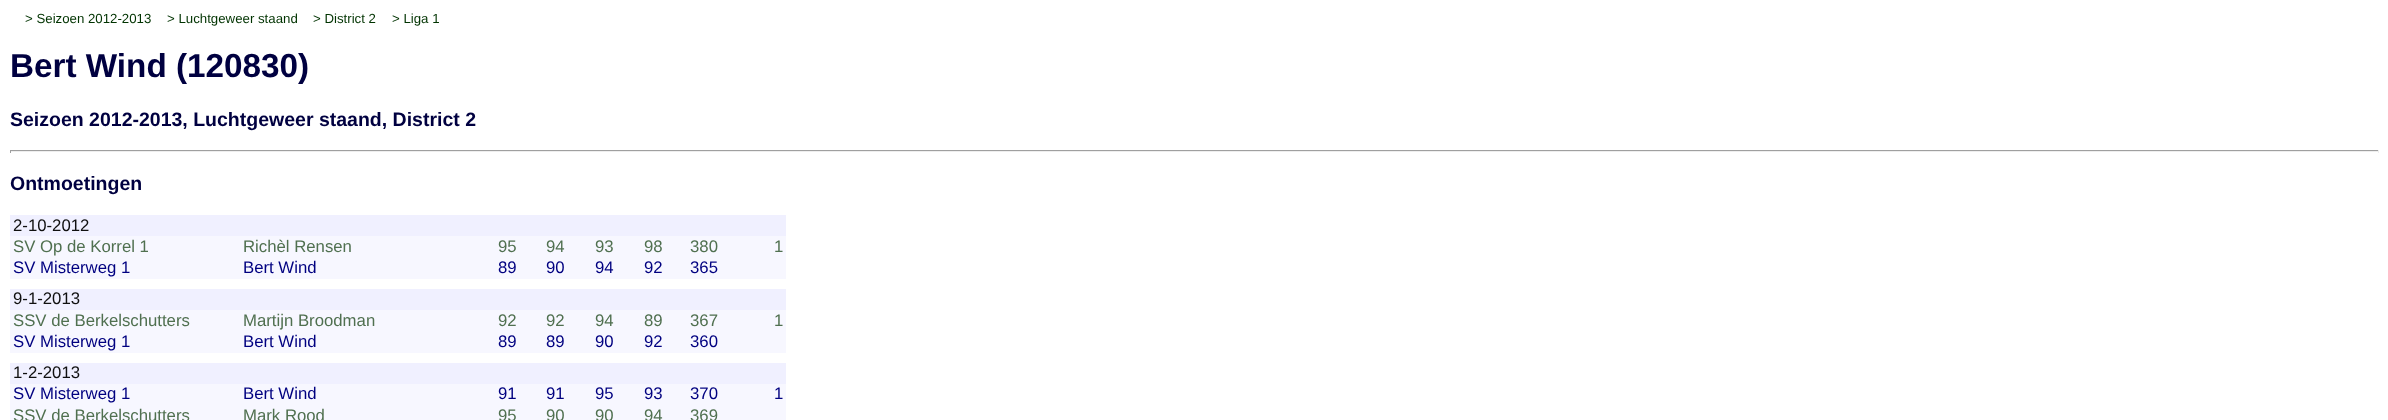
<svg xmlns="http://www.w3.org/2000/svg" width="2388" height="420">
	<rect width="100%" height="100%" fill="#FFFFFF" />
	<g font-family="Liberation Sans" font-size="13.25" fill="#003300">
		<text x="25" y="23">&gt; Seizoen 2012-2013</text>
		<text x="167" y="23">&gt; Luchtgeweer staand</text>
		<text x="313" y="23">&gt; District 2</text>
		<text x="392" y="23">&gt; Liga 1</text>
	</g>
	<text x="10" y="77" font-family="Liberation Sans" font-size="33.25" font-weight="700" fill="#000040">Bert Wind (120830)</text>
	<text x="10" y="126" font-family="Liberation Sans" font-size="19.5" font-weight="700" fill="#000040">Seizoen 2012-2013, Luchtgeweer staand, District 2</text>
	<rect x="10" y="150" width="2369" height="1" fill="#9F9F9F" />
	<rect x="2378" y="150" width="1" height="3" fill="#EEEEEE" />
	<rect x="10" y="151" width="2369" height="1" fill="#EEEEEE" />
	<rect x="10" y="150" width="1" height="3" fill="#9F9F9F" />
	<text x="10" y="190" font-family="Liberation Sans" font-size="19.5" font-weight="700" fill="#000040">Ontmoetingen</text>
	<rect x="10" y="215" width="776" height="21" fill="#F0F0FF" />
	<text x="13" y="231" font-family="Liberation Sans" font-size="16.75" fill="#101010">2-10-2012</text>
	<rect x="10" y="236" width="776" height="22" fill="#F7F7FF" />
	<g font-family="Liberation Sans" font-size="16.75" fill="#507050">
		<text x="13" y="252">SV Op de Korrel 1</text>
		<text x="243" y="252">Richèl Rensen</text>
		<text x="498" y="252">95</text>
		<text x="546" y="252">94</text>
		<text x="595" y="252">93</text>
		<text x="644" y="252">98</text>
		<text x="690" y="252">380</text>
		<text x="774" y="252">1</text>
	</g>
	<rect x="10" y="258" width="776" height="21" fill="#F7F7FF" />
	<g font-family="Liberation Sans" font-size="16.75" fill="#000080">
		<text x="13" y="273">SV Misterweg 1</text>
		<text x="243" y="273">Bert Wind</text>
		<text x="498" y="273">89</text>
		<text x="546" y="273">90</text>
		<text x="595" y="273">94</text>
		<text x="644" y="273">92</text>
		<text x="690" y="273">365</text>
	</g>
	<rect x="10" y="289" width="776" height="21" fill="#F0F0FF" />
	<text x="13" y="304" font-family="Liberation Sans" font-size="16.75" fill="#101010">9-1-2013</text>
	<rect x="10" y="310" width="776" height="21" fill="#F7F7FF" />
	<g font-family="Liberation Sans" font-size="16.75" fill="#507050">
		<text x="13" y="326">SSV de Berkelschutters</text>
		<text x="243" y="326">Martijn Broodman</text>
		<text x="498" y="326">92</text>
		<text x="546" y="326">92</text>
		<text x="595" y="326">94</text>
		<text x="644" y="326">89</text>
		<text x="690" y="326">367</text>
		<text x="774" y="326">1</text>
	</g>
	<rect x="10" y="331" width="776" height="22" fill="#F7F7FF" />
	<g font-family="Liberation Sans" font-size="16.75" fill="#000080">
		<text x="13" y="347">SV Misterweg 1</text>
		<text x="243" y="347">Bert Wind</text>
		<text x="498" y="347">89</text>
		<text x="546" y="347">89</text>
		<text x="595" y="347">90</text>
		<text x="644" y="347">92</text>
		<text x="690" y="347">360</text>
	</g>
	<rect x="10" y="363" width="776" height="21" fill="#F0F0FF" />
	<text x="13" y="378" font-family="Liberation Sans" font-size="16.75" fill="#101010">1-2-2013</text>
	<rect x="10" y="384" width="776" height="21" fill="#F7F7FF" />
	<g font-family="Liberation Sans" font-size="16.75" fill="#000080">
		<text x="13" y="399">SV Misterweg 1</text>
		<text x="243" y="399">Bert Wind</text>
		<text x="498" y="399">91</text>
		<text x="546" y="399">91</text>
		<text x="595" y="399">95</text>
		<text x="644" y="399">93</text>
		<text x="690" y="399">370</text>
		<text x="774" y="399">1</text>
	</g>
	<rect x="10" y="405" width="776" height="15" fill="#F7F7FF" />
	<g font-family="Liberation Sans" font-size="16.75" fill="#507050">
		<text x="13" y="421">SSV de Berkelschutters</text>
		<text x="243" y="421">Mark Rood</text>
		<text x="498" y="421">95</text>
		<text x="546" y="421">90</text>
		<text x="595" y="421">90</text>
		<text x="644" y="421">94</text>
		<text x="690" y="421">369</text>
	</g>
</svg>
